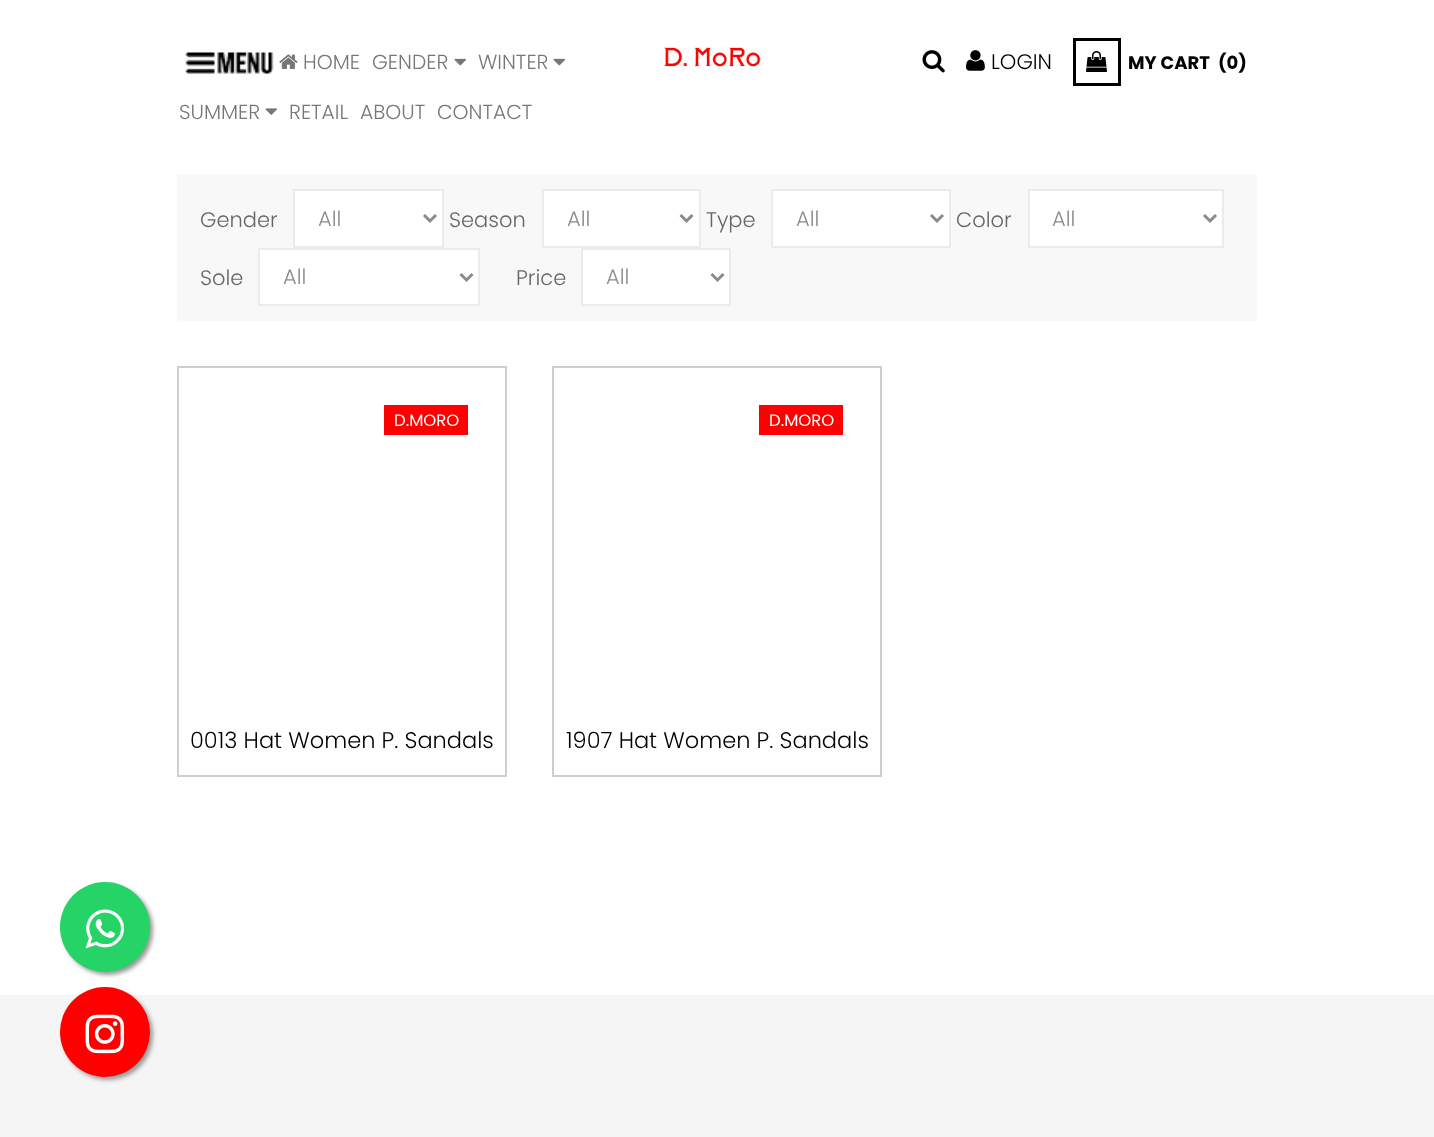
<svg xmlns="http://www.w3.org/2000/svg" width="1434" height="1137">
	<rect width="100%" height="100%" fill="#FFFFFF" />
	<image x="185" y="52" width="89" height="22" href="assets/img1.png" />
	<image x="279" y="54" width="19" height="15" href="assets/img2.png" />
	<g font-family="Poppins" font-size="20.25" font-weight="300" fill="#777777">
		<text x="303" y="69">HOME</text>
		<text x="372" y="69">GENDER</text>
	</g>
	<image x="454" y="58" width="12" height="8" href="assets/img3.png" />
	<text x="478" y="69" font-family="Poppins" font-size="20.25" font-weight="300" fill="#777777">WINTER</text>
	<image x="553" y="58" width="12" height="8" href="assets/img3.png" />
	<text x="179" y="119" font-family="Poppins" font-size="20.25" font-weight="300" fill="#777777">SUMMER</text>
	<image x="265" y="108" width="12" height="7" href="assets/img4.png" />
	<g font-family="Poppins" font-size="20.25" font-weight="300" fill="#777777">
		<text x="289" y="119">RETAIL</text>
		<text x="360" y="119">ABOUT</text>
		<text x="437" y="119">CONTACT</text>
	</g>
	<image x="663" y="45" width="98" height="22" href="assets/img5.png" />
	<image x="922" y="50" width="23" height="23" href="assets/img6.png" />
	<image x="966" y="50" width="19" height="21" href="assets/img7.png" />
	<text x="991" y="69" font-family="Poppins" font-size="21" font-weight="300" fill="#000000">LOGIN</text>
	<rect x="1074.5" y="39.5" width="45" height="45" fill="none" stroke="#000000" stroke-width="3" />
	<image x="1086" y="51" width="21" height="21" href="assets/img8.png" />
	<g font-family="Poppins" font-size="18" font-weight="700" fill="#000000">
		<text x="1128" y="69">MY CART</text>
		<text x="1218" y="69">(0)</text>
	</g>
	<rect x="177" y="174" width="1080" height="147" fill="#F8F8F8" />
	<text x="200" y="227" font-family="Poppins" font-size="21" font-weight="300" fill="#666666">Gender</text>
	<rect x="294" y="190" width="149" height="57" fill="#FFFFFF" stroke="#EBEBEB" stroke-width="2" />
	<path d="M424 215L430 221L436 215" fill="none" stroke="#8A8A8A" stroke-width="3" />
	<text x="318" y="226" font-family="Poppins" font-size="21" font-weight="300" fill="#8A8A8A">All</text>
	<text x="449" y="227" font-family="Poppins" font-size="21" font-weight="300" fill="#666666">Season</text>
	<rect x="543" y="190" width="157" height="57" fill="#FFFFFF" stroke="#EBEBEB" stroke-width="2" />
	<path d="M680.5 215L686.5 221L692.5 215" fill="none" stroke="#8A8A8A" stroke-width="3" />
	<text x="567" y="226" font-family="Poppins" font-size="21" font-weight="300" fill="#8A8A8A">All</text>
	<text x="706" y="227" font-family="Poppins" font-size="21" font-weight="300" fill="#666666">Type</text>
	<rect x="772" y="190" width="178" height="57" fill="#FFFFFF" stroke="#EBEBEB" stroke-width="2" />
	<path d="M931 215L937 221L943 215" fill="none" stroke="#8A8A8A" stroke-width="3" />
	<text x="796" y="226" font-family="Poppins" font-size="21" font-weight="300" fill="#8A8A8A">All</text>
	<text x="956" y="227" font-family="Poppins" font-size="21" font-weight="300" fill="#666666">Color</text>
	<rect x="1029" y="190" width="194" height="57" fill="#FFFFFF" stroke="#EBEBEB" stroke-width="2" />
	<path d="M1204 215L1210 221L1216 215" fill="none" stroke="#8A8A8A" stroke-width="3" />
	<text x="1052" y="226" font-family="Poppins" font-size="21" font-weight="300" fill="#8A8A8A">All</text>
	<text x="200" y="285" font-family="Poppins" font-size="21" font-weight="300" fill="#666666">Sole</text>
	<rect x="259" y="249" width="220" height="56" fill="#FFFFFF" stroke="#EBEBEB" stroke-width="2" />
	<path d="M460.5 274L466.5 280L472.5 274" fill="none" stroke="#8A8A8A" stroke-width="3" />
	<text x="283" y="284" font-family="Poppins" font-size="21" font-weight="300" fill="#8A8A8A">All</text>
	<text x="516" y="285" font-family="Poppins" font-size="21" font-weight="300" fill="#666666">Price</text>
	<rect x="582" y="249" width="148" height="56" fill="#FFFFFF" stroke="#EBEBEB" stroke-width="2" />
	<path d="M711.5 274L717.5 280L723.5 274" fill="none" stroke="#8A8A8A" stroke-width="3" />
	<text x="606" y="284" font-family="Poppins" font-size="21" font-weight="300" fill="#8A8A8A">All</text>
	<rect x="178" y="367" width="328" height="409" fill="none" stroke="#CECECE" stroke-width="2" />
	<rect x="384" y="405" width="84" height="30" fill="#FF0000" />
	<text x="394" y="426" font-family="Poppins" font-size="16.5" fill="#FFFFFF">D.MORO</text>
	<text x="190" y="748" font-family="Poppins" font-size="22.5" font-weight="300" fill="#000000">0013 Hat Women P. Sandals</text>
	<rect x="553" y="367" width="328" height="409" fill="none" stroke="#CECECE" stroke-width="2" />
	<rect x="759" y="405" width="84" height="30" fill="#FF0000" />
	<text x="769" y="426" font-family="Poppins" font-size="16.5" fill="#FFFFFF">D.MORO</text>
	<text x="566" y="748" font-family="Poppins" font-size="22.5" font-weight="300" fill="#000000">1907 Hat Women P. Sandals</text>
	<rect x="63" y="885" width="90" height="90" rx="45" fill="#999999" filter="blur(2px)" />
	<circle cx="105" cy="927" r="45" fill="#25D366" />
	<image x="85" y="909" width="40" height="40" href="assets/img9.png" />
	<rect x="0" y="995" width="1434" height="142" fill="#F5F5F5" />
	<rect x="63" y="990" width="90" height="90" rx="45" fill="#999999" filter="blur(2px)" />
	<circle cx="105" cy="1032" r="45" fill="#FF0000" />
	<image x="85" y="1014" width="40" height="40" href="assets/img10.png" />
</svg>
